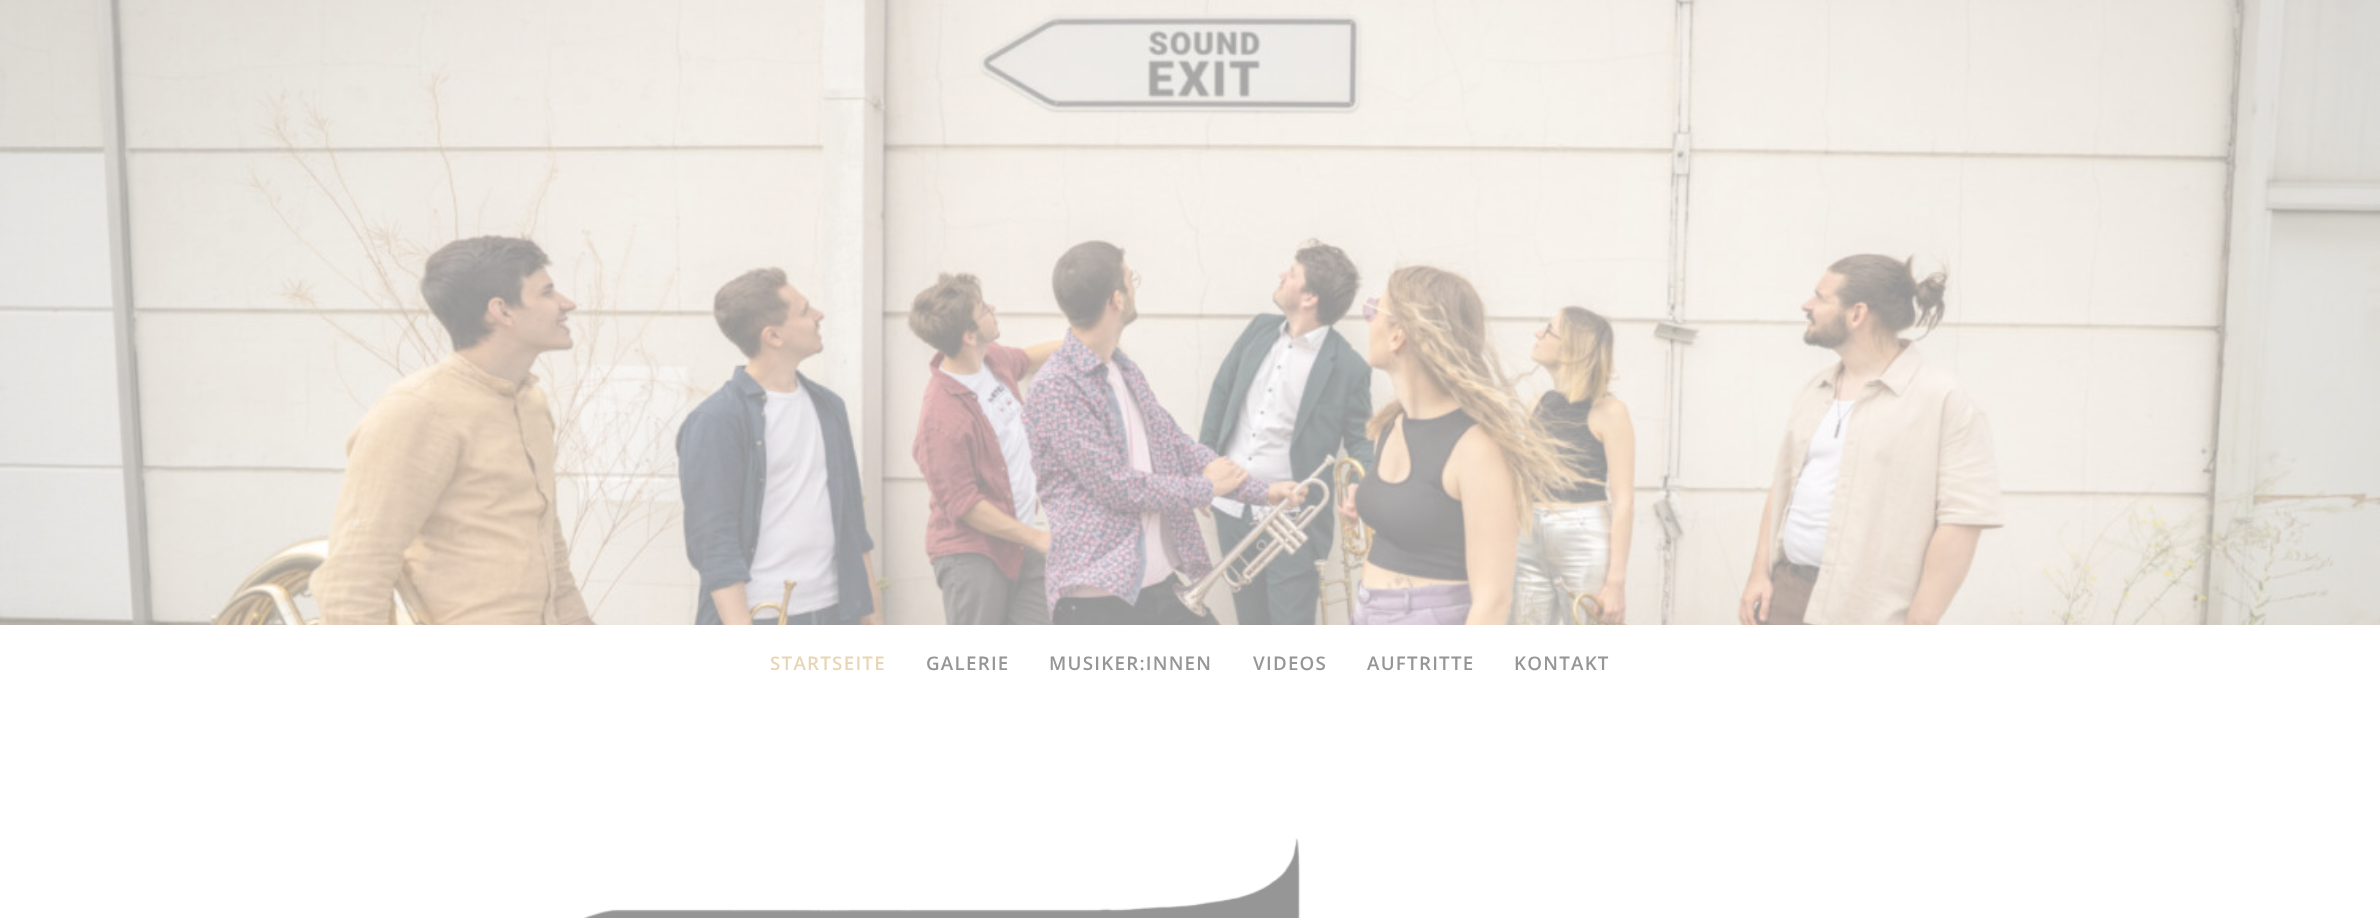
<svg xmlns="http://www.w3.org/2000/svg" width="2380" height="918">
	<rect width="100%" height="100%" fill="#FFFFFF" />
	<image x="0" y="0" width="2380" height="625" href="assets/img1.png" />
	<text x="770" y="670" font-family="Open Sans" font-size="18.75" font-weight="600" letter-spacing="1.25" fill="#E9D6B8">STARTSEITE</text>
	<g font-family="Open Sans" font-size="18.75" font-weight="600" letter-spacing="1.25" fill="#969696">
		<text x="926" y="670">GALERIE</text>
		<text x="1049" y="670">MUSIKER:INNEN</text>
		<text x="1253" y="670">VIDEOS</text>
		<text x="1367" y="670">AUFTRITTE</text>
		<text x="1514" y="670">KONTAKT</text>
	</g>
	<image x="583" y="838" width="718" height="80" href="assets/img2.png" />
</svg>
